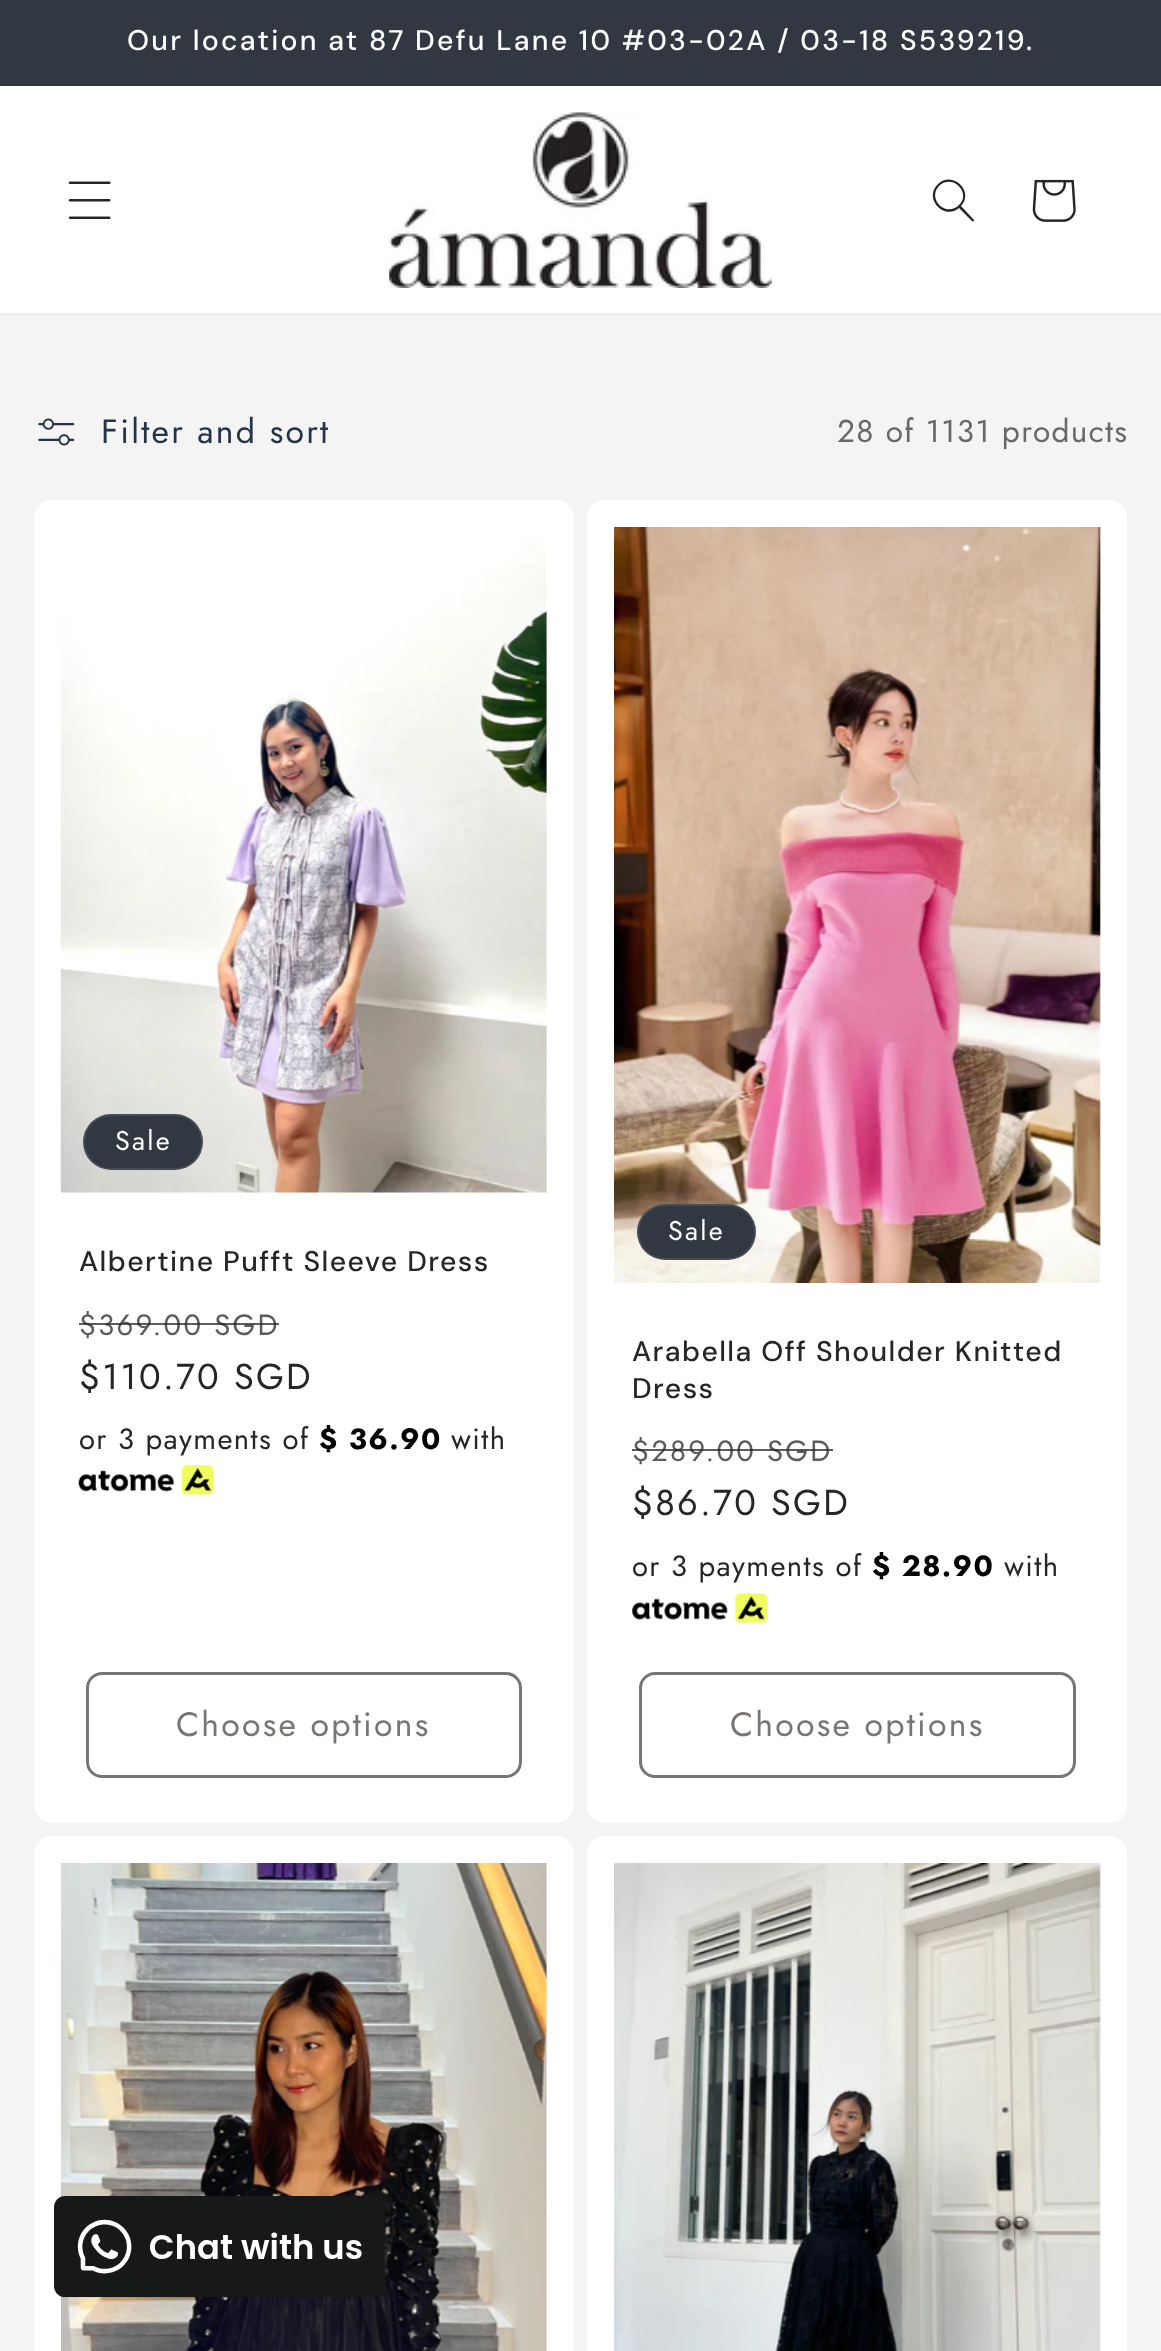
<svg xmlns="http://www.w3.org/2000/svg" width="1161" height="2351">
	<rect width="100%" height="100%" fill="#F4F4F4" />
	<rect x="0" y="0" width="1161" height="86" fill="#323841" />
	<text x="127" y="50" font-family="DM Sans" font-size="28.35" font-weight="500" letter-spacing="2.25" fill="#FFFFFF">Our location at 87 Defu Lane 10 #03-02A / 03-18 S539219.</text>
	<rect x="0" y="86" width="1161" height="227" fill="#FFFFFF" />
	<rect x="0" y="313" width="1161" height="2" fill="#EEEEEE" />
	<image x="68" y="181" width="43" height="38" href="assets/img1.png" />
	<image x="389" y="112" width="383" height="176" href="assets/img2.png" />
	<path d="M959 205C946 218 927 199 939 186C952 173 972 193 959 205M959 208C944 221 923 198 938 184C952 170 975 191 961 206L974 220C975 221 973 222 972 221Z" fill="#262626" fill-rule="evenodd" />
	<image x="1032" y="179" width="44" height="43" href="assets/img3.png" />
	<image x="38" y="418" width="37" height="28" href="assets/img4.png" />
	<text x="101" y="443" font-family="Jost" font-size="33.75" letter-spacing="2.25" fill="#253347">Filter and sort</text>
	<text x="837" y="442" font-family="Jost" font-size="31.5" letter-spacing="1.4" fill="#676869">28 of 1131 products</text>
	<rect x="34" y="500" width="540" height="1323" rx="18" fill="#FFFFFF" />
	<image x="60" y="537" width="487" height="656" href="assets/img5.png" />
	<rect x="83" y="1114" width="120" height="56" rx="28" fill="#323841" />
	<rect x="84" y="1115" width="118" height="54" rx="27" fill="none" stroke="#FFFFFF" stroke-opacity="0.1" stroke-width="2" />
	<text x="115" y="1150" font-family="Jost" font-size="27" letter-spacing="2.25" fill="#FFFFFF">Sale</text>
	<text x="79" y="1271" font-family="DM Sans" font-size="28.35" font-weight="500" letter-spacing="1.4" fill="#262626">Albertine Pufft Sleeve Dress</text>
	<text x="79" y="1335" font-family="Jost" font-size="29.25" letter-spacing="2.25" fill="#5C5C5C">$369.00 SGD</text>
	<rect x="79" y="1323" width="200" height="2" fill="#262626" fill-opacity="0.75" />
	<text x="79" y="1389" font-family="Jost" font-size="36" letter-spacing="2.25" fill="#262626">$110.70 SGD</text>
	<text x="79" y="1449" font-family="Jost" font-size="29.25" letter-spacing="1.4" fill="#262626">or 3 payments of</text>
	<text x="319" y="1449" font-family="Jost" font-size="29.25" font-weight="700" letter-spacing="1.4" fill="#000000">$ 36.90</text>
	<text x="451" y="1449" font-family="Jost" font-size="29.25" letter-spacing="1.4" fill="#262626">with</text>
	<image x="78" y="1464" width="136" height="32" href="assets/img6.png" />
	<rect x="87.5" y="1673.5" width="433" height="103" rx="14.5" fill="none" stroke="#797572" stroke-width="3" />
	<text x="176" y="1736" font-family="Jost" font-size="33.75" letter-spacing="2.25" fill="#797572">Choose options</text>
	<rect x="587" y="500" width="540" height="1323" rx="18" fill="#FFFFFF" />
	<image x="614" y="527" width="487" height="756" href="assets/img7.png" />
	<rect x="637" y="1204" width="119" height="56" rx="28" fill="#323841" />
	<rect x="638" y="1205" width="117" height="54" rx="27" fill="none" stroke="#FFFFFF" stroke-opacity="0.1" stroke-width="2" />
	<text x="668" y="1240" font-family="Jost" font-size="27" letter-spacing="2.25" fill="#FFFFFF">Sale</text>
	<g font-family="DM Sans" font-size="28.35" font-weight="500" letter-spacing="1.4" fill="#262626">
		<text x="632" y="1361">Arabella Off Shoulder Knitted</text>
		<text x="632" y="1398">Dress</text>
	</g>
	<text x="632" y="1461" font-family="Jost" font-size="29.25" letter-spacing="2.25" fill="#5C5C5C">$289.00 SGD</text>
	<rect x="632" y="1449" width="201" height="2" fill="#262626" fill-opacity="0.75" />
	<text x="632" y="1515" font-family="Jost" font-size="36" letter-spacing="2.25" fill="#262626">$86.70 SGD</text>
	<text x="632" y="1576" font-family="Jost" font-size="29.25" letter-spacing="1.4" fill="#262626">or 3 payments of</text>
	<text x="872" y="1576" font-family="Jost" font-size="29.25" font-weight="700" letter-spacing="1.4" fill="#000000">$ 28.90</text>
	<text x="1004" y="1576" font-family="Jost" font-size="29.25" letter-spacing="1.4" fill="#262626">with</text>
	<image x="632" y="1592" width="136" height="32" href="assets/img8.png" />
	<rect x="640.5" y="1673.5" width="434" height="103" rx="14.5" fill="none" stroke="#797572" stroke-width="3" />
	<text x="730" y="1736" font-family="Jost" font-size="33.75" letter-spacing="2.25" fill="#797572">Choose options</text>
	<rect x="34" y="1836" width="540" height="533" rx="18" fill="#FFFFFF" />
	<image x="61" y="1863" width="486" height="488" href="assets/img9.png" />
	<rect x="587" y="1836" width="540" height="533" rx="18" fill="#FFFFFF" />
	<image x="614" y="1863" width="487" height="488" href="assets/img10.png" />
	<image x="54" y="2196" width="331" height="102" href="assets/img11.png" />
</svg>
